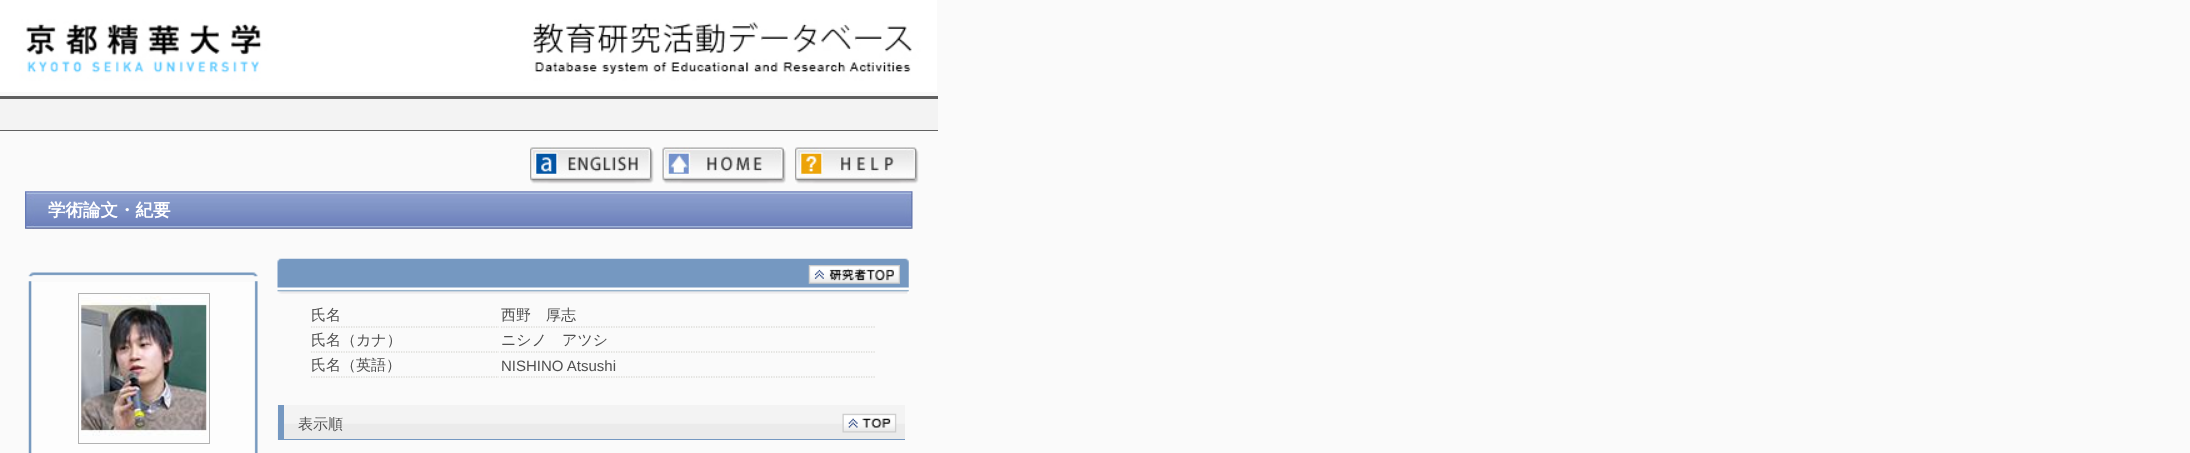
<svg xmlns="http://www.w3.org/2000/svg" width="2190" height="453">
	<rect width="100%" height="100%" fill="#FAFAFA" />
	<image x="0" y="0" width="937" height="92" href="assets/img1.png" />
	<rect x="0" y="99" width="938" height="31" fill="#F3F3F3" />
	<rect x="0" y="96" width="938" height="3" fill="#606060" />
	<rect x="0" y="130" width="938" height="1" fill="#606060" />
	<image x="530" y="147" width="124" height="37" href="assets/img2.png" />
	<image x="662" y="147" width="124" height="37" href="assets/img3.png" />
	<image x="795" y="147" width="124" height="37" href="assets/img4.png" />
	<image x="25" y="191" width="888" height="38" href="assets/img5.png" />
	<text x="48" y="216" font-family="WenQuanYi Zen Hei" font-size="17.5" font-weight="700" fill="#FFFFFF">学術論文・紀要</text>
	<image x="28" y="272" width="230" height="5" href="assets/img6.png" />
	<rect x="29" y="281" width="229" height="172" fill="#F3F3F3" />
	<image x="28" y="281" width="230" height="172" href="assets/img7.png" />
	<rect x="78.5" y="293.5" width="131" height="150" fill="none" stroke="#B2B2B2" />
	<image x="81" y="296" width="126" height="140" href="assets/img8.png" />
	<image x="277" y="258" width="632" height="36" href="assets/img9.png" />
	<image x="808" y="265" width="92" height="19" href="assets/img10.png" />
	<path d="M311 327H499" fill="none" stroke="#CECDC8" stroke-width="1.2" stroke-dasharray="1.25 1.25" />
	<text x="311" y="320" font-family="WenQuanYi Zen Hei" font-size="15" font-weight="500" fill="#505050">氏名</text>
	<path d="M501 327H876" fill="none" stroke="#CECDC8" stroke-width="1.2" stroke-dasharray="1.25 1.25" />
	<text x="501" y="320" font-family="WenQuanYi Zen Hei" font-size="15" font-weight="500" fill="#505050">西野　厚志</text>
	<path d="M311 352H499" fill="none" stroke="#CECDC8" stroke-width="1.2" stroke-dasharray="1.25 1.25" />
	<text x="311" y="345" font-family="WenQuanYi Zen Hei" font-size="15" font-weight="500" fill="#505050">氏名（カナ）</text>
	<path d="M501 352H876" fill="none" stroke="#CECDC8" stroke-width="1.2" stroke-dasharray="1.25 1.25" />
	<text x="501" y="345" font-family="WenQuanYi Zen Hei" font-size="15" font-weight="500" fill="#505050">ニシノ　アツシ</text>
	<path d="M311 377H499" fill="none" stroke="#CECDC8" stroke-width="1.2" stroke-dasharray="1.25 1.25" />
	<text x="311" y="370" font-family="WenQuanYi Zen Hei" font-size="15" font-weight="500" fill="#505050">氏名（英語）</text>
	<path d="M501 377H876" fill="none" stroke="#CECDC8" stroke-width="1.2" stroke-dasharray="1.25 1.25" />
	<text x="501" y="371" font-family="Liberation Sans" font-size="15" fill="#505050">NISHINO Atsushi</text>
	<image x="277" y="405" width="628" height="35" href="assets/img11.png" />
	<rect x="278" y="439" width="627" height="1" fill="#7598C1" />
	<rect x="278" y="405" width="6" height="35" fill="#7598C1" />
	<text x="298" y="429" font-family="WenQuanYi Zen Hei" font-size="15" font-weight="500" fill="#505050">表示順</text>
	<image x="842" y="413" width="55" height="20" href="assets/img12.png" />
</svg>
